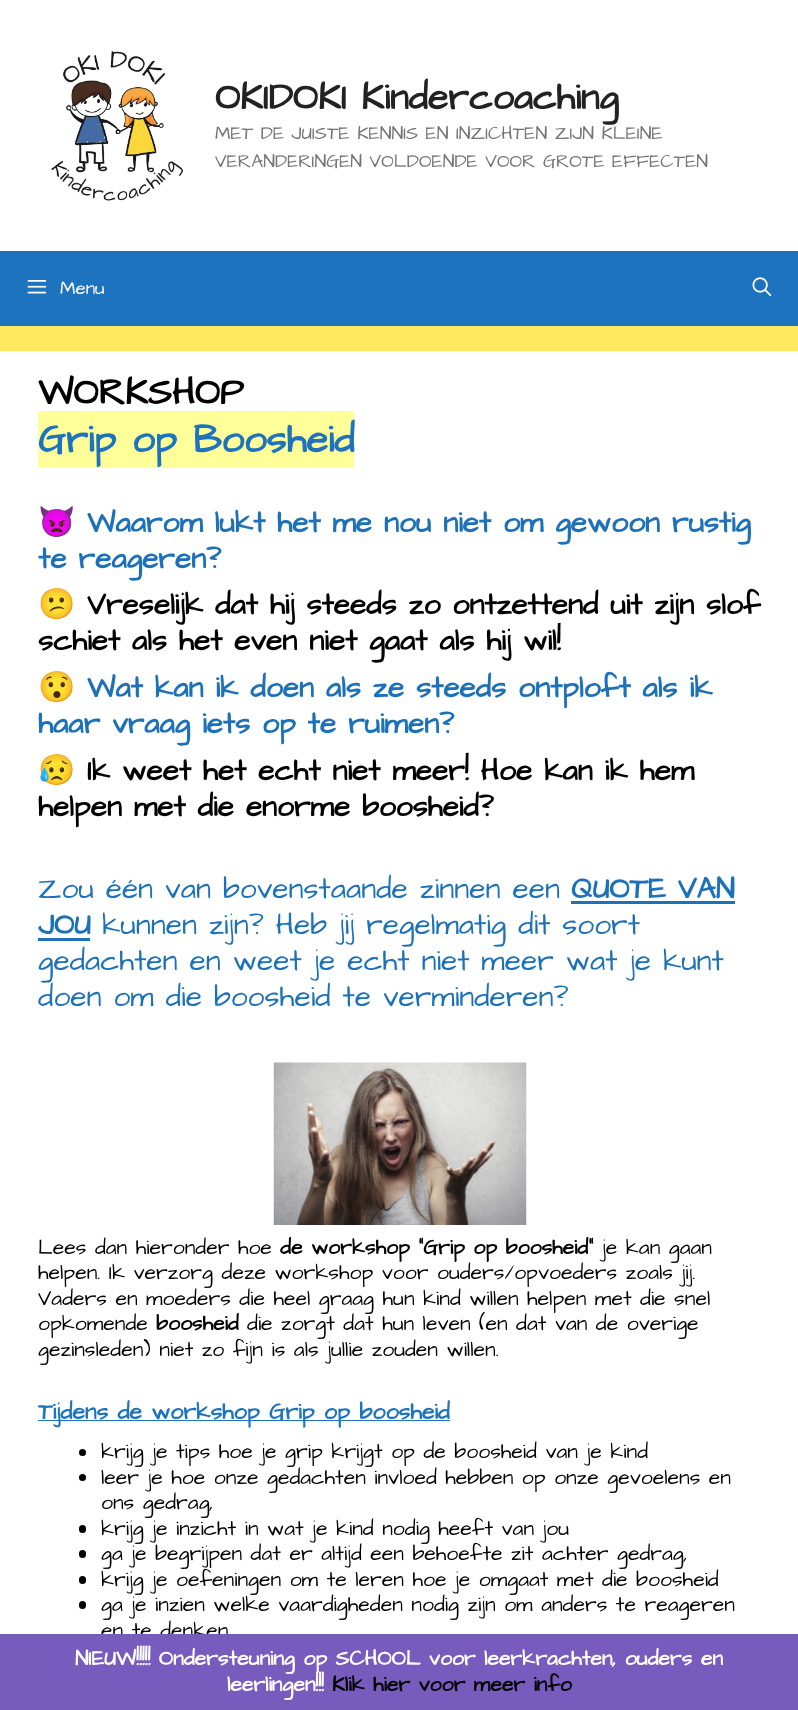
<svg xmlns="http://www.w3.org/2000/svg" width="798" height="1710">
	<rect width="100%" height="100%" fill="#FFE95D" />
	<rect x="0" y="0" width="798" height="251" fill="#FFFFFF" />
	<image x="51" y="51" width="132" height="150" href="assets/img1.png" />
	<text x="215" y="109" font-family="Architects Daughter" font-size="37.5" font-weight="700" fill="#222222">OKIDOKI Kindercoaching</text>
	<g font-family="Architects Daughter" font-size="18.75" fill="#757575">
		<text x="215" y="139">MET DE JUISTE KENNIS EN INZICHTEN ZIJN KLEINE</text>
		<text x="215" y="167">VERANDERINGEN VOLDOENDE VOOR GROTE EFFECTEN</text>
	</g>
	<rect x="0" y="251" width="798" height="75" fill="#1E73BE" />
	<image x="27" y="280" width="20" height="14" href="assets/img2.png" />
	<text x="60" y="294" font-family="Architects Daughter" font-size="18.75" fill="#FFFFFF">Menu</text>
	<image x="752" y="277" width="20" height="19" href="assets/img3.png" />
	<rect x="0" y="351" width="798" height="1283" fill="#FFFFFF" />
	<text x="38" y="404" font-family="Architects Daughter" font-size="37.5" font-weight="700" fill="#000000">WORKSHOP</text>
	<rect x="38" y="411" width="316" height="57" fill="#FFFF99" />
	<text x="38" y="452" font-family="Architects Daughter" font-size="40" font-weight="700" fill="#1E73BE">Grip op Boosheid</text>
	<text x="38" y="532" font-family="Noto Color Emoji" font-size="30" font-weight="700" fill="#1D71B8">👿</text>
	<g font-family="Architects Daughter" font-size="30" font-weight="700" fill="#1D71B8">
		<text x="87" y="532">Waarom lukt het me nou niet om gewoon rustig</text>
		<text x="38" y="568">te reageren?</text>
	</g>
	<text x="38" y="614" font-family="Noto Color Emoji" font-size="30" font-weight="700" fill="#1D71B8">😕</text>
	<g font-family="Architects Daughter" font-size="30" font-weight="700" fill="#000000">
		<text x="87" y="614">Vreselijk dat hij steeds zo ontzettend uit zijn slof</text>
		<text x="38" y="650">schiet als het even niet gaat als hij wil!</text>
	</g>
	<text x="38" y="697" font-family="Noto Color Emoji" font-size="30" font-weight="700" fill="#1D71B8">😯</text>
	<g font-family="Architects Daughter" font-size="30" font-weight="700" fill="#1D71B8">
		<text x="87" y="697">Wat kan ik doen als ze steeds ontploft als ik</text>
		<text x="38" y="733">haar vraag iets op te ruimen?</text>
	</g>
	<text x="38" y="780" font-family="Noto Color Emoji" font-size="30" font-weight="700" fill="#000000">😥</text>
	<g font-family="Architects Daughter" font-size="30" font-weight="700" fill="#000000">
		<text x="87" y="780">Ik weet het echt niet meer! Hoe kan ik hem</text>
		<text x="38" y="816">helpen met die enorme boosheid?</text>
	</g>
	<text x="38" y="898" font-family="Architects Daughter" font-size="30" fill="#1D71B8">Zou één van bovenstaande zinnen een</text>
	<text x="571" y="898" font-family="Architects Daughter" font-size="30" font-weight="700" fill="#1D71B8">QUOTE VAN</text>
	<rect x="571" y="901" width="164" height="3" fill="#1D71B8" />
	<text x="38" y="934" font-family="Architects Daughter" font-size="30" font-weight="700" fill="#1D71B8">JOU</text>
	<rect x="38" y="938" width="52" height="3" fill="#1D71B8" />
	<g font-family="Architects Daughter" font-size="30" fill="#1D71B8">
		<text x="102" y="934">kunnen zijn? Heb jij regelmatig dit soort</text>
		<text x="38" y="970">gedachten en weet je echt niet meer wat je kunt</text>
		<text x="38" y="1006">doen om die boosheid te verminderen?</text>
	</g>
	<image x="273" y="1062" width="254" height="163" href="assets/img4.png" />
	<text x="38" y="1254" font-family="Architects Daughter" font-size="21.25" fill="#000000">Lees dan hieronder hoe</text>
	<text x="280" y="1254" font-family="Architects Daughter" font-size="21.25" font-weight="700" fill="#000000">de workshop “Grip op boosheid”</text>
	<g font-family="Architects Daughter" font-size="21.25" fill="#000000">
		<text x="602" y="1254">je kan gaan</text>
		<text x="38" y="1279">helpen. Ik verzorg deze workshop voor ouders/opvoeders zoals jij.</text>
		<text x="38" y="1305">Vaders en moeders die heel graag hun kind willen helpen met die snel</text>
		<text x="38" y="1330">opkomende</text>
	</g>
	<text x="156" y="1330" font-family="Architects Daughter" font-size="21.25" font-weight="700" fill="#000000">boosheid</text>
	<g font-family="Architects Daughter" font-size="21.25" fill="#000000">
		<text x="247" y="1330">die zorgt dat hun leven (en dat van de overige</text>
		<text x="38" y="1356">gezinsleden) niet zo fijn is als jullie zouden willen.</text>
	</g>
	<rect x="38" y="1420" width="412" height="1" fill="#1E73BE" />
	<text x="38" y="1419" font-family="Architects Daughter" font-size="23.3" font-weight="700" fill="#1E73BE">Tijdens de workshop Grip op boosheid</text>
	<circle cx="82.5" cy="1452.5" r="3.5" fill="#000000" />
	<text x="101" y="1458" font-family="Architects Daughter" font-size="21.25" fill="#000000">krijg je tips hoe je grip krijgt op de boosheid van je kind</text>
	<circle cx="82.5" cy="1477.5" r="3.5" fill="#000000" />
	<g font-family="Architects Daughter" font-size="21.25" fill="#000000">
		<text x="101" y="1484">leer je hoe onze gedachten invloed hebben op onze gevoelens en</text>
		<text x="101" y="1509">ons gedrag,</text>
	</g>
	<rect x="79" y="1525" width="7" height="8" rx="3.5" fill="#000000" />
	<text x="101" y="1535" font-family="Architects Daughter" font-size="21.25" fill="#000000">krijg je inzicht in wat je kind nodig heeft van jou</text>
	<rect x="79" y="1550" width="7" height="8" rx="3.5" fill="#000000" />
	<text x="101" y="1560" font-family="Architects Daughter" font-size="21.25" fill="#000000">ga je begrijpen dat er altijd een behoefte zit achter gedrag,</text>
	<rect x="79" y="1576" width="7" height="8" rx="3.5" fill="#000000" />
	<text x="101" y="1586" font-family="Architects Daughter" font-size="21.25" fill="#000000">krijg je oefeningen om te leren hoe je omgaat met die boosheid</text>
	<rect x="79" y="1601" width="7" height="8" rx="3.5" fill="#000000" />
	<g font-family="Architects Daughter" font-size="21.25" fill="#000000">
		<text x="101" y="1611">ga je inzien welke vaardigheden nodig zijn om anders te reageren</text>
		<text x="101" y="1637">en te denken</text>
	</g>
	<rect x="0" y="1634" width="798" height="76" fill="#775BBD" />
	<g font-family="Architects Daughter" font-size="21.25" font-weight="700" fill="#FFFFFF">
		<text x="75" y="1665">NIEUW!!!!! Ondersteuning op SCHOOL voor leerkrachten, ouders en</text>
		<text x="227" y="1691">leerlingen!!!</text>
	</g>
	<text x="332" y="1691" font-family="Architects Daughter" font-size="21.25" font-weight="700" fill="#000000">Klik hier voor meer info</text>
</svg>
